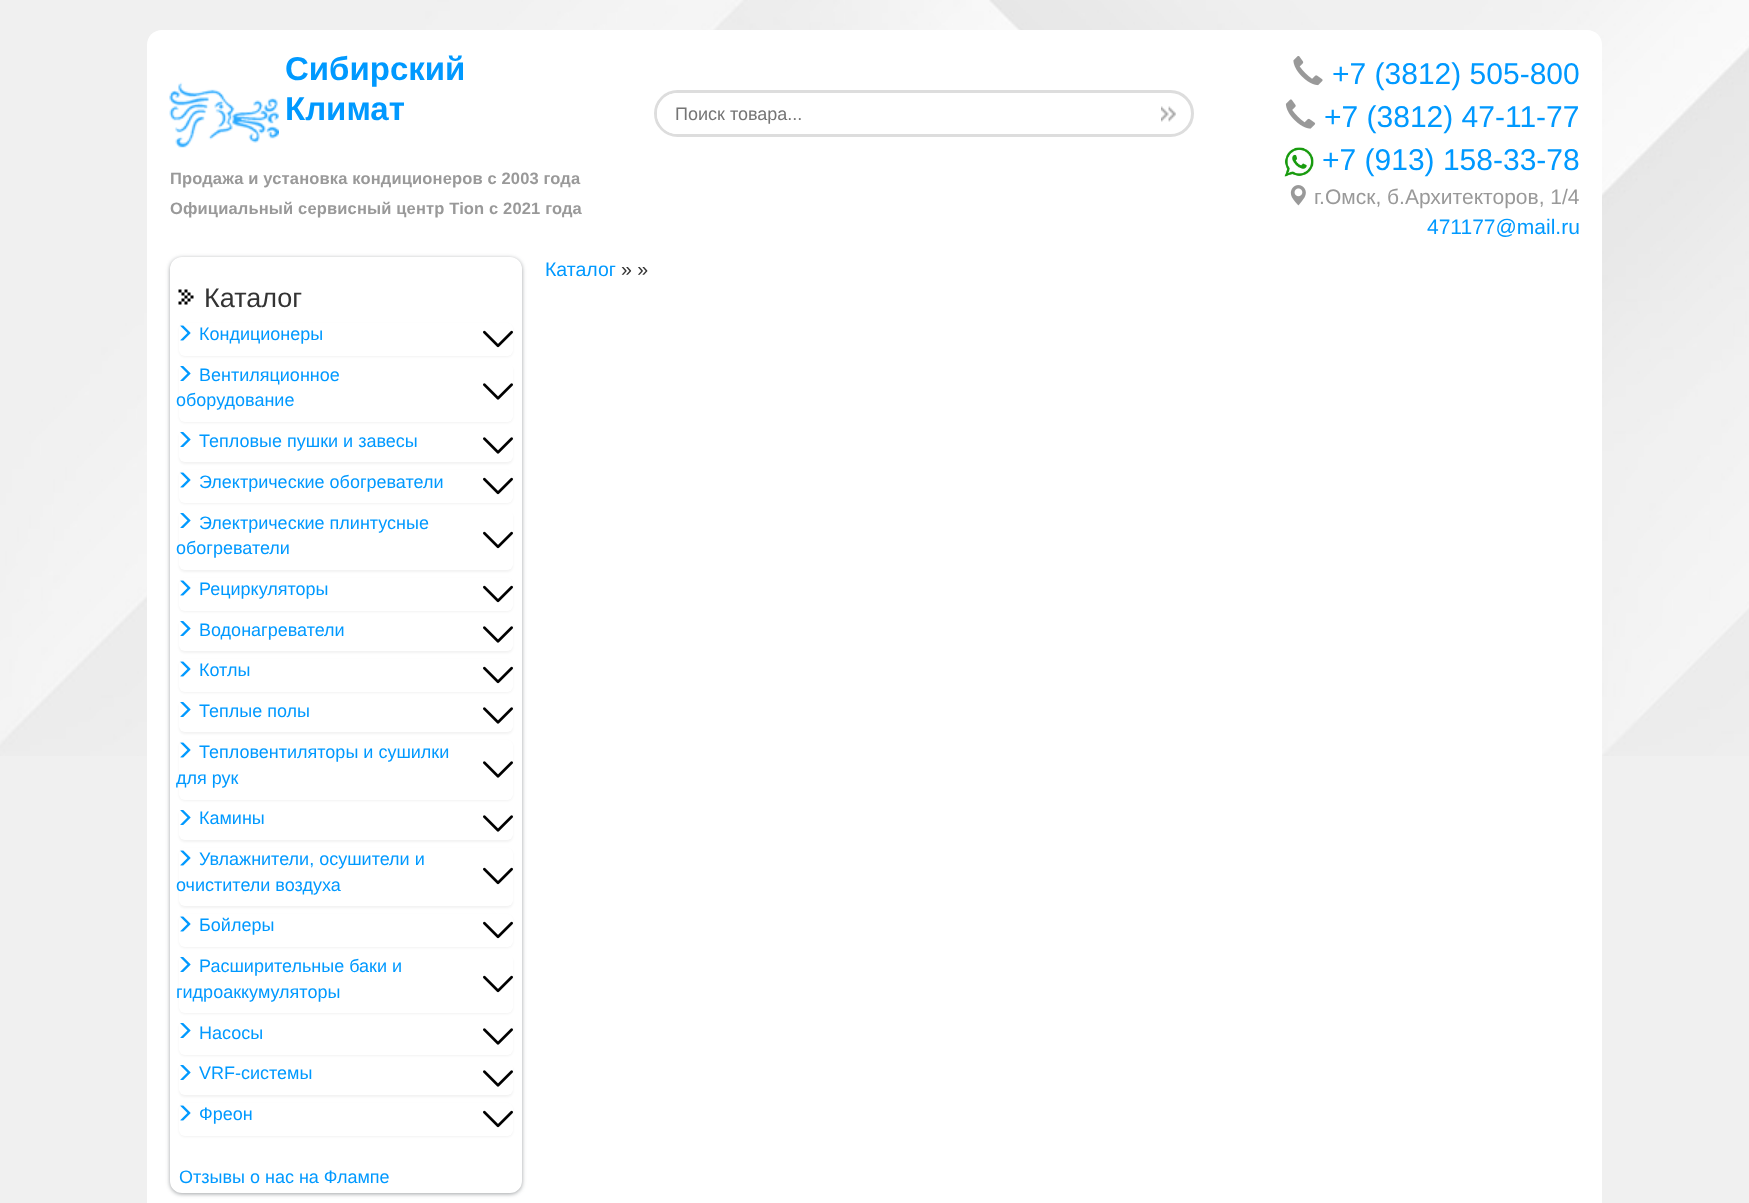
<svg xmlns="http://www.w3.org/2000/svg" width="1749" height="1203">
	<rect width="100%" height="100%" fill="#F0F0F0" />
	<image x="0" y="0" width="1749" height="756" href="assets/img1.png" />
	<path d="M162 30H1587C1595.5 30 1602 36.5 1602 45V257H147V45C147 36.5 153.5 30 162 30Z" fill="#FFFFFF" />
	<image x="169" y="82" width="110" height="66" href="assets/img2.png" />
	<g font-family="Liberation Sans" font-size="33" font-weight="700" fill="#0099FF">
		<text x="285" y="80">Сибирский</text>
		<text x="285" y="120">Климат</text>
	</g>
	<g font-family="Liberation Sans" font-size="16.5" font-weight="700" letter-spacing="0.15" fill="#999999">
		<text x="170" y="184">Продажа и установка кондиционеров с 2003 года</text>
		<text x="170" y="214">Официальный сервисный центр Tion с 2021 года</text>
	</g>
	<rect x="655.5" y="91.5" width="537" height="44" rx="22" fill="none" stroke="#DDDDDD" stroke-width="3" />
	<path d="M677.5 93H1112V134H677.5C666 134 657 125 657 113.5C657 102 666 93 677.5 93Z" fill="#FFFFFF" />
	<text x="675" y="120" font-family="Liberation Sans" font-size="18" fill="#757575">Поиск товара...</text>
	<image x="1161" y="106" width="15" height="16" href="assets/img3.png" />
	<image x="1293" y="56" width="30" height="30" href="assets/img4.png" />
	<text x="1332" y="84" font-family="Liberation Sans" font-size="30" fill="#0099FF">+7 (3812) 505-800</text>
	<image x="1285" y="99" width="31" height="30" href="assets/img5.png" />
	<text x="1324" y="127" font-family="Liberation Sans" font-size="30" fill="#0099FF">+7 (3812) 47-11-77</text>
	<image x="1284" y="147" width="30" height="30" href="assets/img6.png" />
	<text x="1322" y="170" font-family="Liberation Sans" font-size="30" fill="#0099FF">+7 (913) 158-33-78</text>
	<image x="1290" y="185" width="16" height="21" href="assets/img7.png" />
	<text x="1314" y="204" font-family="Liberation Sans" font-size="21" fill="#999999">г.Омск, б.Архитекторов, 1/4</text>
	<text x="1427" y="234" font-family="Liberation Sans" font-size="21" fill="#0099FF">471177@mail.ru</text>
	<rect x="147" y="257" width="1455" height="946" fill="#FFFFFF" />
	<text x="545" y="276" font-family="Liberation Sans" font-size="19.5" fill="#0099FF">Каталог</text>
	<text x="621" y="276" font-family="Liberation Sans" font-size="19.5" fill="#333333">» »</text>
	<rect x="170" y="258" width="352" height="936" rx="12" fill="#3F454B" fill-opacity="0.5" filter="blur(2px)" />
	<rect x="171" y="258" width="350" height="934" rx="11" fill="#FFFFFF" stroke="#FFFFFF" stroke-width="2" />
	<image x="178" y="289" width="16" height="16" href="assets/img8.png" />
	<text x="204" y="307" font-family="Liberation Sans" font-size="27" fill="#333333">Каталог</text>
	<rect x="179" y="324" width="334" height="33" rx="6" fill="#000000" fill-opacity="0.05" filter="blur(1px)" />
	<rect x="179" y="323" width="334" height="33" rx="6" fill="#FFFFFF" />
	<image x="180" y="325" width="11" height="16" href="assets/img9.png" />
	<text x="199" y="340" font-family="Liberation Sans" font-size="18" fill="#0099FF">Кондиционеры</text>
	<image x="483" y="330" width="30" height="18" href="assets/img10.png" />
	<rect x="179" y="365" width="334" height="58" rx="6" fill="#000000" fill-opacity="0.05" filter="blur(1px)" />
	<rect x="179" y="363" width="334" height="59" rx="6" fill="#FFFFFF" />
	<image x="180" y="366" width="11" height="15" href="assets/img11.png" />
	<g font-family="Liberation Sans" font-size="18" fill="#0099FF">
		<text x="199" y="381">Вентиляционное</text>
		<text x="176" y="406">оборудование</text>
	</g>
	<image x="483" y="383" width="30" height="17" href="assets/img12.png" />
	<rect x="179" y="431" width="334" height="33" rx="6" fill="#000000" fill-opacity="0.05" filter="blur(1px)" />
	<rect x="179" y="429" width="334" height="33" rx="6" fill="#FFFFFF" />
	<image x="180" y="432" width="11" height="15" href="assets/img11.png" />
	<text x="199" y="447" font-family="Liberation Sans" font-size="18" fill="#0099FF">Тепловые пушки и завесы</text>
	<image x="483" y="437" width="30" height="17" href="assets/img12.png" />
	<rect x="179" y="471" width="334" height="33" rx="6" fill="#000000" fill-opacity="0.05" filter="blur(1px)" />
	<rect x="179" y="470" width="334" height="33" rx="6" fill="#FFFFFF" />
	<image x="180" y="472" width="11" height="16" href="assets/img9.png" />
	<text x="199" y="488" font-family="Liberation Sans" font-size="18" fill="#0099FF">Электрические обогреватели</text>
	<image x="483" y="477" width="30" height="18" href="assets/img10.png" />
	<rect x="179" y="512" width="334" height="60" rx="6" fill="#000000" fill-opacity="0.05" filter="blur(1px)" />
	<rect x="179" y="510" width="334" height="60" rx="6" fill="#FFFFFF" />
	<image x="180" y="513" width="11" height="15" href="assets/img11.png" />
	<g font-family="Liberation Sans" font-size="18" fill="#0099FF">
		<text x="199" y="529">Электрические плинтусные</text>
		<text x="176" y="554">обогреватели</text>
	</g>
	<image x="483" y="531" width="30" height="18" href="assets/img10.png" />
	<rect x="179" y="579" width="334" height="33" rx="6" fill="#000000" fill-opacity="0.05" filter="blur(1px)" />
	<rect x="179" y="578" width="334" height="33" rx="6" fill="#FFFFFF" />
	<image x="180" y="580" width="11" height="16" href="assets/img9.png" />
	<text x="199" y="595" font-family="Liberation Sans" font-size="18" fill="#0099FF">Рециркуляторы</text>
	<image x="483" y="585" width="30" height="18" href="assets/img10.png" />
	<rect x="179" y="620" width="334" height="33" rx="6" fill="#000000" fill-opacity="0.05" filter="blur(1px)" />
	<rect x="179" y="618" width="334" height="33" rx="6" fill="#FFFFFF" />
	<image x="180" y="621" width="11" height="15" href="assets/img11.png" />
	<text x="199" y="636" font-family="Liberation Sans" font-size="18" fill="#0099FF">Водонагреватели</text>
	<image x="483" y="626" width="30" height="17" href="assets/img12.png" />
	<rect x="179" y="660" width="334" height="33" rx="6" fill="#000000" fill-opacity="0.05" filter="blur(1px)" />
	<rect x="179" y="659" width="334" height="33" rx="6" fill="#FFFFFF" />
	<image x="180" y="661" width="11" height="16" href="assets/img9.png" />
	<text x="199" y="676" font-family="Liberation Sans" font-size="18" fill="#0099FF">Котлы</text>
	<image x="483" y="666" width="30" height="18" href="assets/img10.png" />
	<rect x="179" y="701" width="334" height="33" rx="6" fill="#000000" fill-opacity="0.05" filter="blur(1px)" />
	<rect x="179" y="699" width="334" height="33" rx="6" fill="#FFFFFF" />
	<image x="180" y="702" width="11" height="15" href="assets/img11.png" />
	<text x="199" y="717" font-family="Liberation Sans" font-size="18" fill="#0099FF">Теплые полы</text>
	<image x="483" y="707" width="30" height="17" href="assets/img12.png" />
	<rect x="179" y="741" width="334" height="60" rx="6" fill="#000000" fill-opacity="0.05" filter="blur(1px)" />
	<rect x="179" y="740" width="334" height="60" rx="6" fill="#FFFFFF" />
	<image x="180" y="742" width="11" height="16" href="assets/img9.png" />
	<g font-family="Liberation Sans" font-size="18" fill="#0099FF">
		<text x="199" y="758">Тепловентиляторы и сушилки</text>
		<text x="176" y="784">для рук</text>
	</g>
	<image x="483" y="761" width="30" height="17" href="assets/img12.png" />
	<rect x="179" y="809" width="334" height="33" rx="6" fill="#000000" fill-opacity="0.05" filter="blur(1px)" />
	<rect x="179" y="807" width="334" height="33" rx="6" fill="#FFFFFF" />
	<image x="180" y="810" width="11" height="15" href="assets/img11.png" />
	<text x="199" y="824" font-family="Liberation Sans" font-size="18" fill="#0099FF">Камины</text>
	<image x="483" y="815" width="30" height="17" href="assets/img12.png" />
	<rect x="179" y="849" width="334" height="59" rx="6" fill="#000000" fill-opacity="0.05" filter="blur(1px)" />
	<rect x="179" y="848" width="334" height="58" rx="6" fill="#FFFFFF" />
	<image x="180" y="850" width="11" height="16" href="assets/img9.png" />
	<g font-family="Liberation Sans" font-size="18" fill="#0099FF">
		<text x="199" y="865">Увлажнители, осушители и</text>
		<text x="176" y="891">очистители воздуха</text>
	</g>
	<image x="483" y="867" width="30" height="18" href="assets/img10.png" />
	<rect x="179" y="915" width="334" height="33" rx="6" fill="#000000" fill-opacity="0.05" filter="blur(1px)" />
	<rect x="179" y="914" width="334" height="33" rx="6" fill="#FFFFFF" />
	<image x="180" y="916" width="11" height="16" href="assets/img9.png" />
	<text x="199" y="931" font-family="Liberation Sans" font-size="18" fill="#0099FF">Бойлеры</text>
	<image x="483" y="921" width="30" height="18" href="assets/img10.png" />
	<rect x="179" y="956" width="334" height="58" rx="6" fill="#000000" fill-opacity="0.05" filter="blur(1px)" />
	<rect x="179" y="954" width="334" height="59" rx="6" fill="#FFFFFF" />
	<image x="180" y="957" width="11" height="15" href="assets/img11.png" />
	<g font-family="Liberation Sans" font-size="18" fill="#0099FF">
		<text x="199" y="972">Расширительные баки и</text>
		<text x="176" y="998">гидроаккумуляторы</text>
	</g>
	<image x="483" y="975" width="30" height="18" href="assets/img10.png" />
	<rect x="179" y="1022" width="334" height="34" rx="6" fill="#000000" fill-opacity="0.05" filter="blur(1px)" />
	<rect x="179" y="1020" width="334" height="35" rx="6" fill="#FFFFFF" />
	<image x="180" y="1023" width="11" height="15" href="assets/img11.png" />
	<text x="199" y="1039" font-family="Liberation Sans" font-size="18" fill="#0099FF">Насосы</text>
	<image x="483" y="1028" width="30" height="17" href="assets/img12.png" />
	<rect x="179" y="1064" width="334" height="33" rx="6" fill="#000000" fill-opacity="0.05" filter="blur(1px)" />
	<rect x="179" y="1062" width="334" height="33" rx="6" fill="#FFFFFF" />
	<image x="180" y="1065" width="11" height="15" href="assets/img11.png" />
	<text x="199" y="1079" font-family="Liberation Sans" font-size="18" fill="#0099FF">VRF-системы</text>
	<image x="483" y="1070" width="30" height="17" href="assets/img12.png" />
	<rect x="179" y="1104" width="334" height="33" rx="6" fill="#000000" fill-opacity="0.05" filter="blur(1px)" />
	<rect x="179" y="1103" width="334" height="33" rx="6" fill="#FFFFFF" />
	<image x="180" y="1105" width="11" height="16" href="assets/img9.png" />
	<text x="199" y="1120" font-family="Liberation Sans" font-size="18" fill="#0099FF">Фреон</text>
	<image x="483" y="1110" width="30" height="18" href="assets/img10.png" />
	<text x="179" y="1183" font-family="Liberation Sans" font-size="18" fill="#0099FF">Отзывы о нас на Флампе</text>
</svg>
